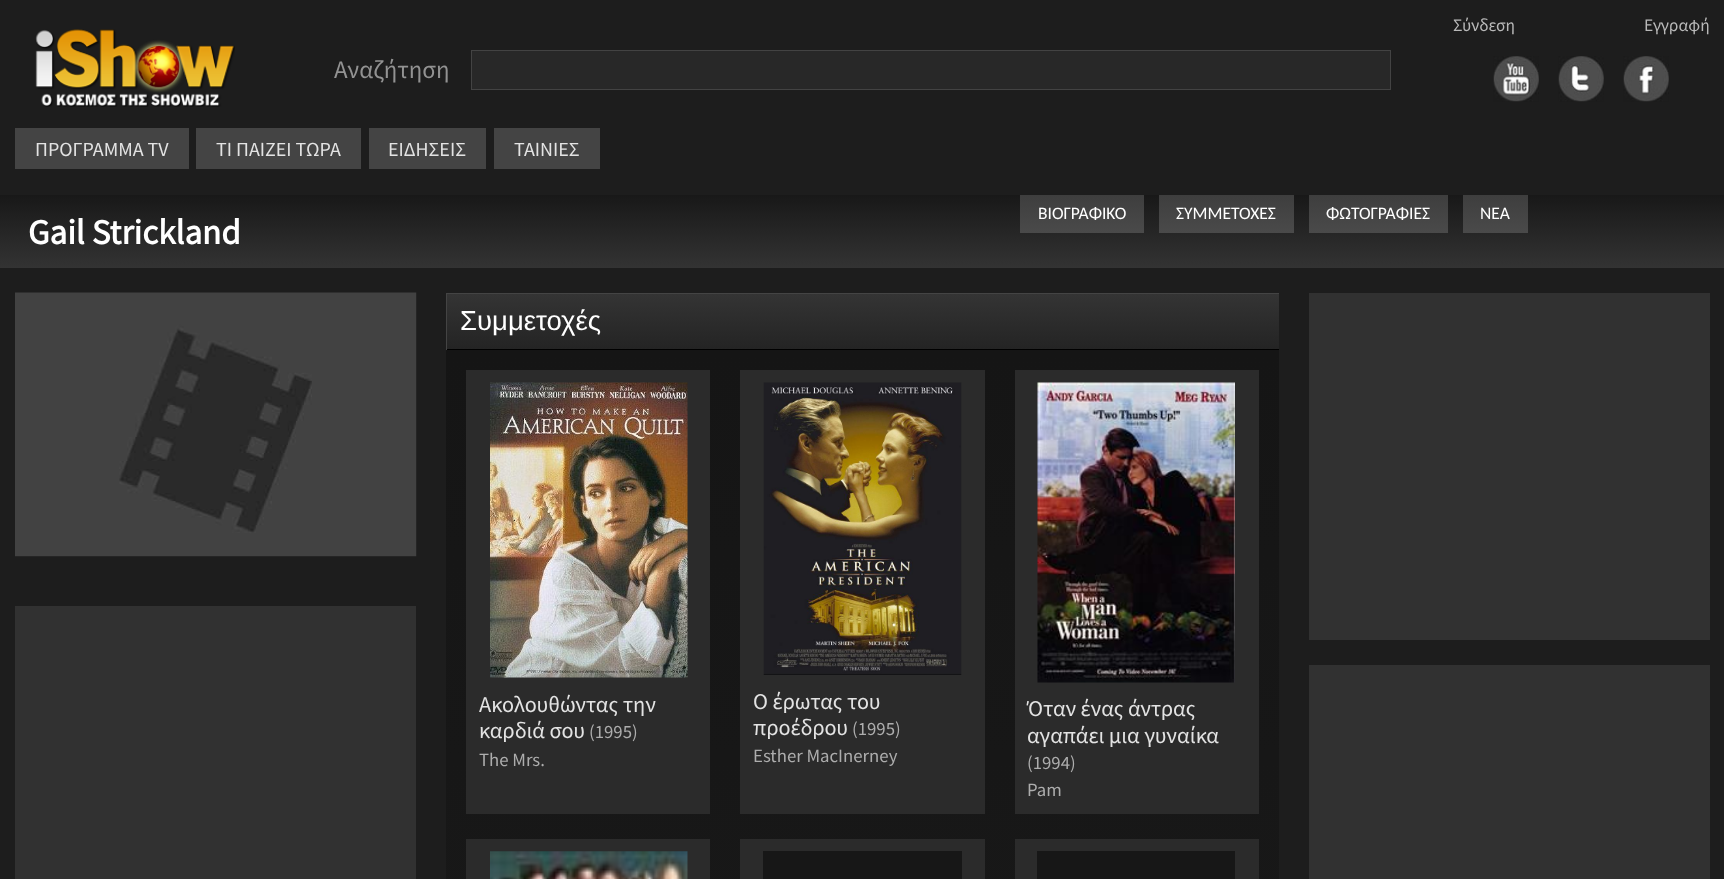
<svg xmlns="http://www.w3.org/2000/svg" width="1724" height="879">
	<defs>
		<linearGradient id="g1" gradientUnits="userSpaceOnUse" x1="863" y1="195" x2="863" y2="268"><stop offset="0" stop-color="#181818" /><stop offset="1" stop-color="#333333" /></linearGradient>
		<linearGradient id="g2" gradientUnits="userSpaceOnUse" x1="1082" y1="195" x2="1082" y2="233"><stop offset="0" stop-color="#3E3E3E" /><stop offset="1" stop-color="#4A4A4A" /></linearGradient>
		<linearGradient id="g3" gradientUnits="userSpaceOnUse" x1="1226" y1="195" x2="1226" y2="233"><stop offset="0" stop-color="#3E3E3E" /><stop offset="1" stop-color="#4A4A4A" /></linearGradient>
		<linearGradient id="g4" gradientUnits="userSpaceOnUse" x1="1378" y1="195" x2="1378" y2="233"><stop offset="0" stop-color="#3E3E3E" /><stop offset="1" stop-color="#4A4A4A" /></linearGradient>
		<linearGradient id="g5" gradientUnits="userSpaceOnUse" x1="1495" y1="195" x2="1495" y2="233"><stop offset="0" stop-color="#3E3E3E" /><stop offset="1" stop-color="#4A4A4A" /></linearGradient>
		<linearGradient id="g6" gradientUnits="userSpaceOnUse" x1="863" y1="294" x2="863" y2="349"><stop offset="0" stop-color="#343434" /><stop offset="1" stop-color="#242424" /></linearGradient>
		<linearGradient id="g7" gradientUnits="userSpaceOnUse" x1="862" y1="350" x2="863" y2="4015"><stop offset="0" stop-color="#151515" /><stop offset="1" stop-color="#272727" /></linearGradient>
	</defs>
	<rect width="100%" height="100%" fill="#1D1D1D" />
	<g font-family="Source Sans Pro" font-size="17.5" fill="#B9B9B9">
		<text x="1453" y="31">Σύνδεση</text>
		<text x="1644" y="31">Εγγραφή</text>
	</g>
	<image x="1493" y="56" width="46" height="46" href="assets/img1.png" />
	<image x="1558" y="56" width="46" height="46" href="assets/img2.png" />
	<image x="1623" y="56" width="46" height="46" href="assets/img3.png" />
	<image x="35" y="29" width="200" height="78" href="assets/img4.png" />
	<text x="334" y="78" font-family="Source Sans Pro" font-size="25" fill="#929292">Αναζήτηση</text>
	<rect x="471.5" y="50.5" width="919" height="39" fill="#282828" stroke="#434343" />
	<rect x="15" y="128" width="174" height="41" fill="#444444" />
	<text x="35" y="156" font-family="Source Sans Pro" font-size="20" fill="#E3E3E3">ΠΡΟΓΡΑΜΜΑ TV</text>
	<rect x="196" y="128" width="165" height="41" fill="#444444" />
	<text x="216" y="156" font-family="Source Sans Pro" font-size="20" fill="#E3E3E3">ΤΙ ΠΑΙΖΕΙ ΤΩΡΑ</text>
	<rect x="369" y="128" width="117" height="41" fill="#444444" />
	<text x="388" y="156" font-family="Source Sans Pro" font-size="20" fill="#E3E3E3">ΕΙΔΗΣΕΙΣ</text>
	<rect x="494" y="128" width="106" height="41" fill="#444444" />
	<text x="514" y="156" font-family="Source Sans Pro" font-size="20" fill="#E3E3E3">ΤΑΙΝΙΕΣ</text>
	<rect x="0" y="195" width="1724" height="73" fill="url(#g1)" />
	<rect x="1020" y="195" width="124" height="38" fill="url(#g2)" />
	<text x="1038" y="219" font-family="Carlito" font-size="17.5" fill="#FFFFFF">ΒΙΟΓΡΑΦΙΚΟ</text>
	<rect x="1159" y="195" width="135" height="38" fill="url(#g3)" />
	<text x="1176" y="219" font-family="Carlito" font-size="17.5" fill="#FFFFFF">ΣΥΜΜΕΤΟΧΕΣ</text>
	<rect x="1309" y="195" width="139" height="38" fill="url(#g4)" />
	<text x="1326" y="219" font-family="Carlito" font-size="17.5" fill="#FFFFFF">ΦΩΤΟΓΡΑΦΙΕΣ</text>
	<rect x="1463" y="195" width="65" height="38" fill="url(#g5)" />
	<text x="1480" y="219" font-family="Carlito" font-size="17.5" fill="#FFFFFF">ΝΕΑ</text>
	<text x="28" y="244" font-family="Source Sans Pro" font-size="35" font-weight="700" fill="#FFFFFF">Gail Strickland</text>
	<image x="15" y="292" width="402" height="265" href="assets/img5.png" />
	<rect x="15" y="606" width="401" height="273" fill="#313131" />
	<rect x="447" y="294" width="832" height="55" fill="url(#g6)" />
	<rect x="446" y="293" width="833" height="1" fill="#444444" />
	<rect x="446" y="349" width="833" height="1" fill="#000000" />
	<rect x="446" y="293" width="1" height="57" fill="#444444" />
	<text x="460" y="330" font-family="Liberation Sans" font-size="27.5" fill="#FFFFFF">Συμμετοχές</text>
	<rect x="446" y="350" width="833" height="529" fill="url(#g7)" />
	<rect x="466" y="370" width="244" height="444" fill="#2B2B2B" />
	<image x="490" y="382" width="198" height="296" href="assets/img6.png" />
	<g font-family="Source Sans Pro" font-size="22.5" fill="#E3E3E3">
		<text x="479" y="712">Ακολουθώντας την</text>
		<text x="479" y="738">καρδιά σου</text>
	</g>
	<g font-family="Source Sans Pro" font-size="18.75" fill="#ADADAD">
		<text x="589" y="738">(1995)</text>
		<text x="479" y="766">The Mrs.</text>
	</g>
	<rect x="740" y="370" width="245" height="444" fill="#2B2B2B" />
	<image x="763" y="382" width="199" height="293" href="assets/img7.png" />
	<g font-family="Source Sans Pro" font-size="22.5" fill="#E3E3E3">
		<text x="753" y="709">Ο έρωτας του</text>
		<text x="753" y="735">προέδρου</text>
	</g>
	<g font-family="Source Sans Pro" font-size="18.75" fill="#ADADAD">
		<text x="852" y="735">(1995)</text>
		<text x="753" y="762">Esther MacInerney</text>
	</g>
	<rect x="1015" y="370" width="244" height="444" fill="#2B2B2B" />
	<image x="1037" y="382" width="198" height="301" href="assets/img8.png" />
	<g font-family="Source Sans Pro" font-size="22.5" fill="#E3E3E3">
		<text x="1027" y="716">Όταν ένας άντρας</text>
		<text x="1027" y="743">αγαπάει μια γυναίκα</text>
	</g>
	<g font-family="Source Sans Pro" font-size="18.75" fill="#ADADAD">
		<text x="1027" y="769">(1994)</text>
		<text x="1027" y="796">Pam</text>
	</g>
	<rect x="466" y="839" width="244" height="40" fill="#2B2B2B" />
	<image x="490" y="851" width="198" height="28" href="assets/img9.png" />
	<rect x="740" y="839" width="245" height="40" fill="#2B2B2B" />
	<rect x="763" y="851" width="199" height="28" fill="#171717" />
	<rect x="1015" y="839" width="244" height="40" fill="#2B2B2B" />
	<rect x="1037" y="851" width="198" height="28" fill="#171717" />
	<rect x="1309" y="293" width="401" height="347" fill="#313131" />
	<rect x="1309" y="665" width="401" height="214" fill="#313131" />
</svg>
